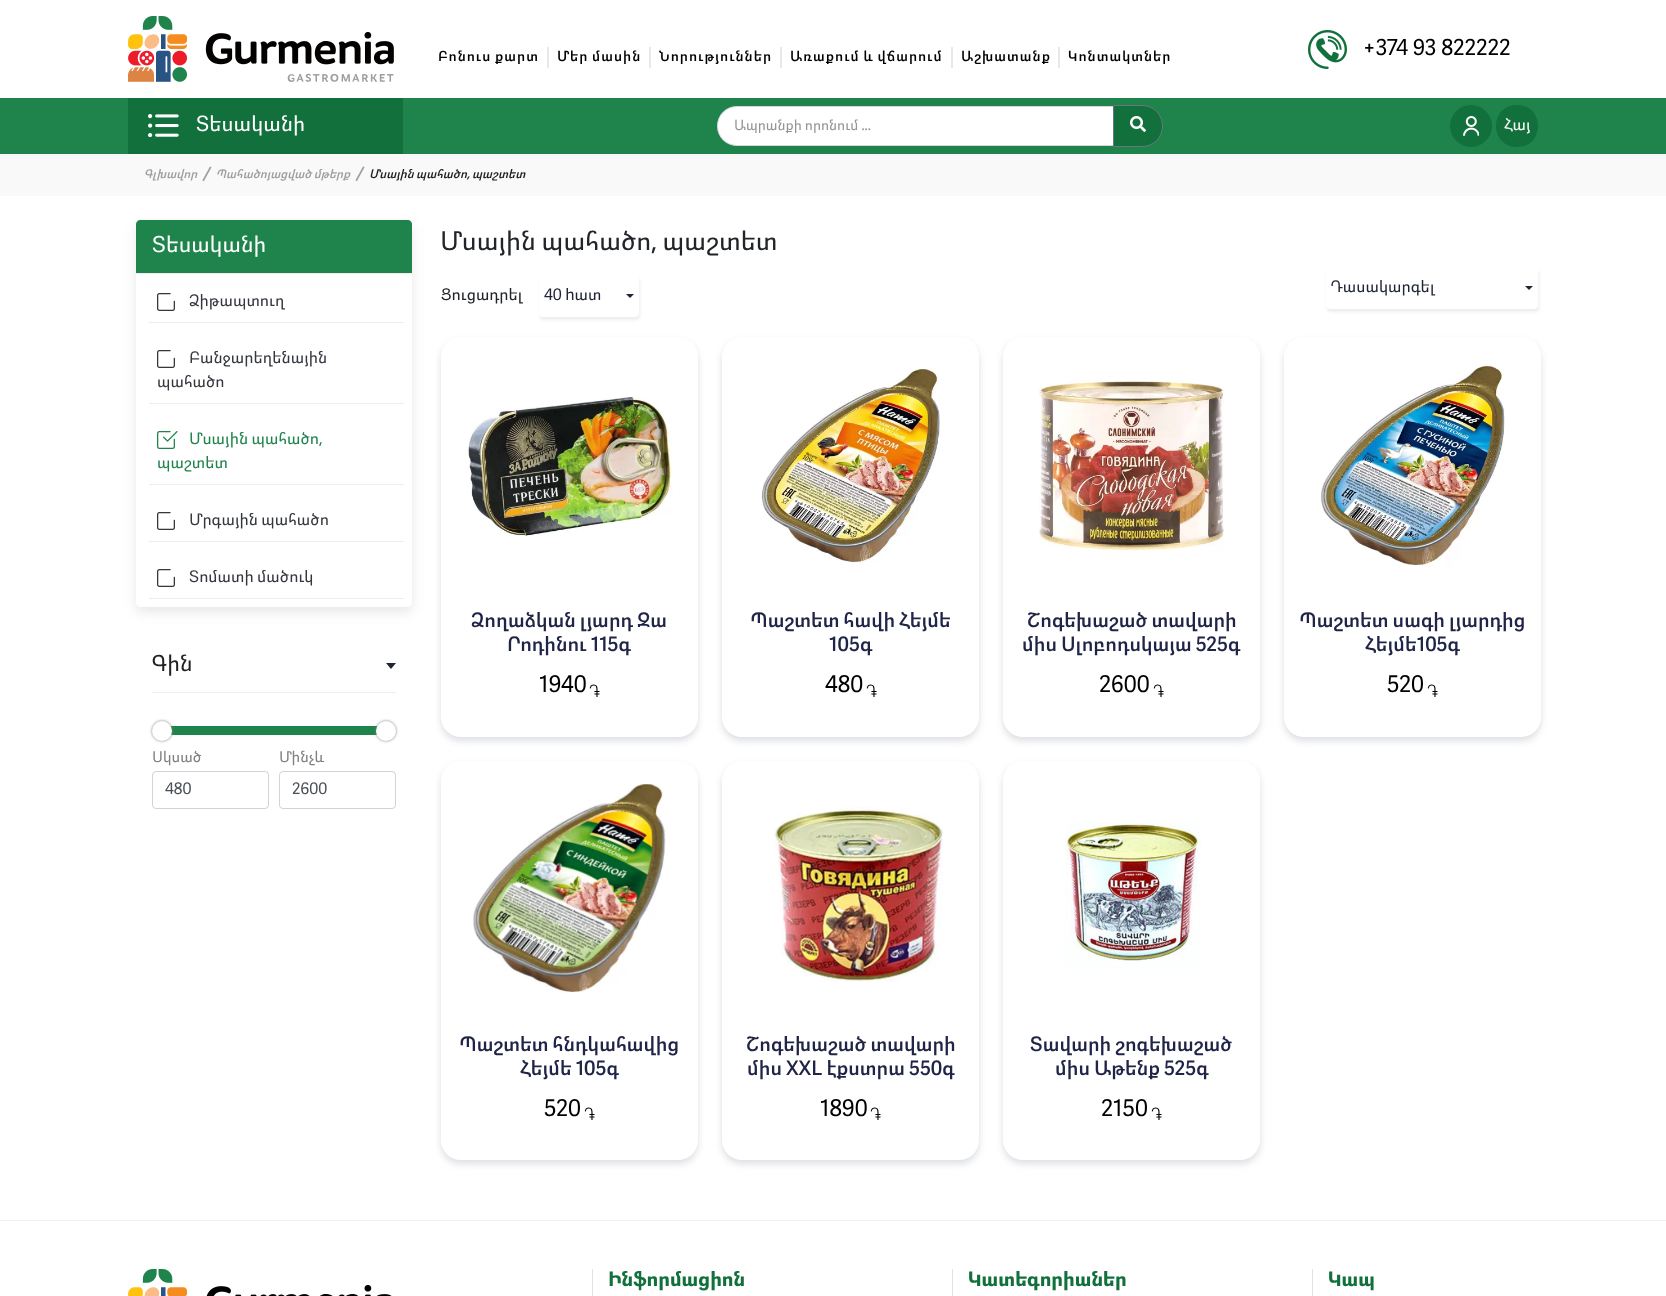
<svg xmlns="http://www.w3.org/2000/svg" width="1666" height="1296">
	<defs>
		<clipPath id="clip1"><path d="M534 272H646V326H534ZM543 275H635C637 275 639 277 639 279V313C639 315 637 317 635 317H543C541 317 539 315 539 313V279C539 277 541 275 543 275Z" clip-rule="evenodd" /></clipPath>
		<clipPath id="clip2"><path d="M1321 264H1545V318H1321ZM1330 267H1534C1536 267 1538 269 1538 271V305C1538 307 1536 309 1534 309H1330C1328 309 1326 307 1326 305V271C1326 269 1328 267 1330 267Z" clip-rule="evenodd" /></clipPath>
	</defs>
	<rect width="100%" height="100%" fill="#FFFFFF" />
	<image x="128" y="16" width="266" height="66" href="assets/img1.png" />
	<rect x="547" y="47" width="2" height="21" fill="#E8E8E8" />
	<text x="438" y="61" font-family="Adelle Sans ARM" font-size="14" font-weight="600" letter-spacing="1" fill="#000000">Բոնուս քարտ</text>
	<rect x="649" y="47" width="2" height="21" fill="#E8E8E8" />
	<text x="557" y="61" font-family="Adelle Sans ARM" font-size="14" font-weight="600" letter-spacing="1" fill="#000000">Մեր մասին</text>
	<rect x="780" y="47" width="2" height="21" fill="#E8E8E8" />
	<text x="659" y="61" font-family="Adelle Sans ARM" font-size="14" font-weight="600" letter-spacing="1" fill="#000000">Նորություններ</text>
	<rect x="951" y="47" width="2" height="21" fill="#E8E8E8" />
	<text x="790" y="61" font-family="Adelle Sans ARM" font-size="14" font-weight="600" letter-spacing="1" fill="#000000">Առաքում և վճարում</text>
	<rect x="1058" y="47" width="2" height="21" fill="#E8E8E8" />
	<g font-family="Adelle Sans ARM" font-size="14" font-weight="600" letter-spacing="1" fill="#000000">
		<text x="961" y="61">Աշխատանք</text>
		<text x="1068" y="61">Կոնտակտներ</text>
	</g>
	<image x="1308" y="30" width="39" height="39" href="assets/img2.png" />
	<text x="1363" y="55" font-family="Adelle Sans ARM" font-size="22" fill="#000000">+374 93 822222</text>
	<rect x="0" y="98" width="1666" height="56" fill="#1F844C" />
	<rect x="128" y="98" width="275" height="56" fill="#12703C" />
	<image x="148" y="114" width="31" height="23" href="assets/img3.png" />
	<text x="196" y="131" font-family="Adelle Sans ARM" font-size="21" fill="#FFFFFF">Տեսականի</text>
	<path d="M737 106.5H1138.5V145.5H737C726 145.5 717.5 137 717.5 126C717.5 115 726 106.5 737 106.5Z" fill="#FFFFFF" stroke="#D8D8D8" />
	<text x="734" y="130" font-family="Adelle Sans ARM" font-size="14" fill="#949494">Ապրանքի որոնում ...</text>
	<path d="M1113.5 105.5H1142C1153.5 105.5 1162.5 114.5 1162.5 126C1162.5 137.5 1153.5 146.5 1142 146.5H1113.5Z" fill="#12703C" stroke="#6C757D" />
	<image x="1130" y="116" width="16" height="16" href="assets/img4.png" />
	<circle cx="1471" cy="126" r="21" fill="#12703C" />
	<image x="1463" y="116" width="16" height="20" href="assets/img5.png" />
	<path d="M1517 105C1545 105 1545 147 1517 147C1489 147 1489 105 1517 105Z" fill="#12703C" />
	<text x="1504" y="130" font-family="Adelle Sans ARM" font-size="16" fill="#FFFFFF">Հայ</text>
	<rect x="0" y="154" width="1666" height="42" fill="#F9F9F9" />
	<text x="144" y="178" font-family="Adelle Sans ARM" font-size="12" font-weight="600" font-style="italic" fill="#9E9E9E">Գլխավոր</text>
	<image x="202" y="166" width="10" height="16" href="assets/img6.png" />
	<text x="216" y="178" font-family="Adelle Sans ARM" font-size="12" font-weight="600" font-style="italic" fill="#9E9E9E">Պահածոյացված մթերք</text>
	<image x="355" y="166" width="10" height="15" href="assets/img7.png" />
	<text x="369" y="178" font-family="Adelle Sans ARM" font-size="12" font-weight="600" font-style="italic" fill="#212121">Մսային պահածո, պաշտետ</text>
	<rect x="136" y="225" width="276" height="387" rx="4" fill="#676767" fill-opacity="0.16" filter="blur(6px)" />
	<path d="M136 220H412V603C412 605 410 607 408 607H140C138 607 136 605 136 603Z" fill="#FFFFFF" />
	<path d="M140 220H408C410 220 412 222 412 224V274H136V224C136 222 138 220 140 220Z" fill="#1F844C" />
	<rect x="136" y="273" width="276" height="1" fill="#EDEDED" />
	<text x="152" y="252" font-family="Adelle Sans ARM" font-size="22" fill="#FFFFFF">Տեսականի</text>
	<rect x="149" y="322" width="255" height="1" fill="#EDEDED" />
	<image x="157" y="293" width="18" height="18" href="assets/img8.png" />
	<text x="189" y="306" font-family="Adelle Sans ARM" font-size="16" fill="#34373E">Ձիթապտուղ</text>
	<rect x="149" y="403" width="255" height="1" fill="#EDEDED" />
	<image x="157" y="350" width="18" height="18" href="assets/img8.png" />
	<g font-family="Adelle Sans ARM" font-size="16" fill="#34373E">
		<text x="189" y="363">Բանջարեղենային</text>
		<text x="157" y="387">պահածո</text>
	</g>
	<rect x="149" y="484" width="255" height="1" fill="#EDEDED" />
	<image x="157" y="431" width="21" height="18" href="assets/img9.png" />
	<g font-family="Adelle Sans ARM" font-size="16" fill="#1F844C">
		<text x="189" y="444">Մսային պահածո,</text>
		<text x="157" y="468">պաշտետ</text>
	</g>
	<rect x="149" y="541" width="255" height="1" fill="#EDEDED" />
	<image x="157" y="512" width="18" height="18" href="assets/img8.png" />
	<text x="189" y="525" font-family="Adelle Sans ARM" font-size="16" fill="#34373E">Մրգային պահածո</text>
	<rect x="149" y="598" width="255" height="1" fill="#EDEDED" />
	<image x="157" y="569" width="18" height="18" href="assets/img8.png" />
	<text x="189" y="582" font-family="Adelle Sans ARM" font-size="16" fill="#34373E">Տոմատի մածուկ</text>
	<rect x="152" y="692" width="244" height="1" fill="#EDEDED" />
	<text x="152" y="671" font-family="Adelle Sans ARM" font-size="22" fill="#212121">Գին</text>
	<path d="M391 669L386 663H396Z" fill="#1F2535" />
	<rect x="170" y="726" width="208" height="9" fill="#1F844C" />
	<rect x="152" y="721" width="20" height="20" rx="10" fill="#808080" filter="blur(1.5px)" />
	<circle cx="162" cy="731" r="10" fill="#FFFFFF" />
	<rect x="376" y="721" width="20" height="20" rx="10" fill="#808080" filter="blur(1.5px)" />
	<circle cx="386" cy="731" r="10" fill="#FFFFFF" />
	<text x="152" y="762" font-family="Adelle Sans ARM" font-size="15" fill="#808080">Սկսած</text>
	<rect x="152.5" y="771.5" width="116" height="37" rx="3.5" fill="none" stroke="#CED4DA" />
	<text x="165" y="794" font-family="Adelle Sans ARM" font-size="16" fill="#495057">480</text>
	<text x="279" y="762" font-family="Adelle Sans ARM" font-size="15" fill="#808080">Մինչև</text>
	<rect x="279.5" y="771.5" width="116" height="37" rx="3.5" fill="none" stroke="#CED4DA" />
	<text x="292" y="794" font-family="Adelle Sans ARM" font-size="16" fill="#495057">2600</text>
	<text x="440" y="250" font-family="Adelle Sans ARM" font-size="26" fill="#212529">Մսային պահածո, պաշտետ</text>
	<text x="441" y="300" font-family="Adelle Sans ARM" font-size="16" fill="#212529">Ցուցադրել</text>
	<g clip-path="url(#clip1)">
		<rect x="540" y="278" width="100" height="42" rx="4" fill="#000000" fill-opacity="0.07" filter="blur(1.5px)" />
	</g>
	<text x="544" y="300" font-family="Adelle Sans ARM" font-size="16" fill="#1F2535">40 hատ</text>
	<path d="M626 294H634L630 298Z" fill="#1F2535" />
	<g clip-path="url(#clip2)">
		<rect x="1327" y="270" width="212" height="42" rx="4" fill="#000000" fill-opacity="0.07" filter="blur(1.5px)" />
	</g>
	<text x="1331" y="292" font-family="Adelle Sans ARM" font-size="16" fill="#1F2535">Դասակարգել</text>
	<path d="M1525 286H1533L1529 290Z" fill="#1F2535" />
	<rect x="441" y="341" width="257" height="400" rx="20" fill="#DDDFE3" filter="blur(3.5px)" />
	<rect x="441" y="337" width="257" height="400" rx="20" fill="#FFFFFF" />
	<image x="468" y="397" width="205" height="139" href="assets/img10.png" />
	<g font-family="Adelle Sans ARM" font-size="20" font-weight="600" fill="#202447">
		<text x="471" y="627">Ձողաձկան լյարդ Զա</text>
		<text x="507" y="651">Րոդինու 115գ</text>
	</g>
	<text x="539" y="692" font-family="Adelle Sans ARM" font-size="23" fill="#000000">1940</text>
	<text x="590" y="697" font-family="Adelle Sans ARM" font-size="17" font-weight="300" fill="#000000">֏</text>
	<rect x="722" y="341" width="257" height="400" rx="20" fill="#DDDFE3" filter="blur(3.5px)" />
	<rect x="722" y="337" width="257" height="400" rx="20" fill="#FFFFFF" />
	<image x="761" y="368" width="179" height="195" href="assets/img11.png" />
	<g font-family="Adelle Sans ARM" font-size="20" font-weight="600" fill="#202447">
		<text x="751" y="627">Պաշտետ հավի Հեյմե</text>
		<text x="829" y="651">105գ</text>
	</g>
	<text x="825" y="692" font-family="Adelle Sans ARM" font-size="23" fill="#000000">480</text>
	<text x="867" y="697" font-family="Adelle Sans ARM" font-size="17" font-weight="300" fill="#000000">֏</text>
	<rect x="1003" y="341" width="257" height="400" rx="20" fill="#DDDFE3" filter="blur(3.5px)" />
	<rect x="1003" y="337" width="257" height="400" rx="20" fill="#FFFFFF" />
	<image x="1039" y="380" width="185" height="171" href="assets/img12.png" />
	<g font-family="Adelle Sans ARM" font-size="20" font-weight="600" fill="#202447">
		<text x="1027" y="627">Շոգեխաշած տավարի</text>
		<text x="1022" y="651">միս Սլոբոդսկայա 525գ</text>
	</g>
	<text x="1099" y="692" font-family="Adelle Sans ARM" font-size="23" fill="#000000">2600</text>
	<text x="1154" y="697" font-family="Adelle Sans ARM" font-size="17" font-weight="300" fill="#000000">֏</text>
	<rect x="1284" y="341" width="257" height="400" rx="20" fill="#DDDFE3" filter="blur(3.5px)" />
	<rect x="1284" y="337" width="257" height="400" rx="20" fill="#FFFFFF" />
	<image x="1320" y="364" width="185" height="203" href="assets/img13.png" />
	<g font-family="Adelle Sans ARM" font-size="20" font-weight="600" fill="#202447">
		<text x="1300" y="627">Պաշտետ սագի լյարդից</text>
		<text x="1365" y="651">Հեյմե105գ</text>
	</g>
	<text x="1387" y="692" font-family="Adelle Sans ARM" font-size="23" fill="#000000">520</text>
	<text x="1428" y="697" font-family="Adelle Sans ARM" font-size="17" font-weight="300" fill="#000000">֏</text>
	<rect x="441" y="765" width="257" height="399" rx="20" fill="#DDDFE3" filter="blur(3.5px)" />
	<rect x="441" y="761" width="257" height="399" rx="20" fill="#FFFFFF" />
	<image x="473" y="783" width="193" height="210" href="assets/img14.png" />
	<g font-family="Adelle Sans ARM" font-size="20" font-weight="600" fill="#202447">
		<text x="460" y="1051">Պաշտետ հնդկահավից</text>
		<text x="520" y="1075">Հեյմե 105գ</text>
	</g>
	<text x="544" y="1116" font-family="Adelle Sans ARM" font-size="23" fill="#000000">520</text>
	<text x="585" y="1120" font-family="Adelle Sans ARM" font-size="17" font-weight="300" fill="#000000">֏</text>
	<rect x="722" y="765" width="257" height="399" rx="20" fill="#DDDFE3" filter="blur(3.5px)" />
	<rect x="722" y="761" width="257" height="399" rx="20" fill="#FFFFFF" />
	<image x="774" y="807" width="169" height="175" href="assets/img15.png" />
	<g font-family="Adelle Sans ARM" font-size="20" font-weight="600" fill="#202447">
		<text x="746" y="1051">Շոգեխաշած տավարի</text>
		<text x="747" y="1075">միս XXL էքստրա 550գ</text>
	</g>
	<text x="820" y="1116" font-family="Adelle Sans ARM" font-size="23" fill="#000000">1890</text>
	<text x="871" y="1120" font-family="Adelle Sans ARM" font-size="17" font-weight="300" fill="#000000">֏</text>
	<rect x="1003" y="765" width="257" height="399" rx="20" fill="#DDDFE3" filter="blur(3.5px)" />
	<rect x="1003" y="761" width="257" height="399" rx="20" fill="#FFFFFF" />
	<image x="1065" y="822" width="136" height="146" href="assets/img16.png" />
	<g font-family="Adelle Sans ARM" font-size="20" font-weight="600" fill="#202447">
		<text x="1030" y="1051">Տավարի շոգեխաշած</text>
		<text x="1055" y="1075">միս Աթենք 525գ</text>
	</g>
	<text x="1101" y="1116" font-family="Adelle Sans ARM" font-size="23" fill="#000000">2150</text>
	<text x="1152" y="1120" font-family="Adelle Sans ARM" font-size="17" font-weight="300" fill="#000000">֏</text>
	<rect x="0" y="1220" width="1666" height="1" fill="#F0F0F0" />
	<rect x="592" y="1269" width="1" height="27" fill="#E2E2E2" />
	<image x="128" y="1269" width="264" height="27" href="assets/img17.png" />
	<rect x="952" y="1269" width="1" height="27" fill="#E2E2E2" />
	<text x="608" y="1286" font-family="Adelle Sans ARM" font-size="20" font-weight="700" fill="#12703C">Ինֆորմացիոն</text>
	<rect x="1312" y="1269" width="1" height="27" fill="#E2E2E2" />
	<g font-family="Adelle Sans ARM" font-size="20" font-weight="700" fill="#12703C">
		<text x="968" y="1286">Կատեգորիաներ</text>
		<text x="1328" y="1286">Կապ</text>
	</g>
</svg>
